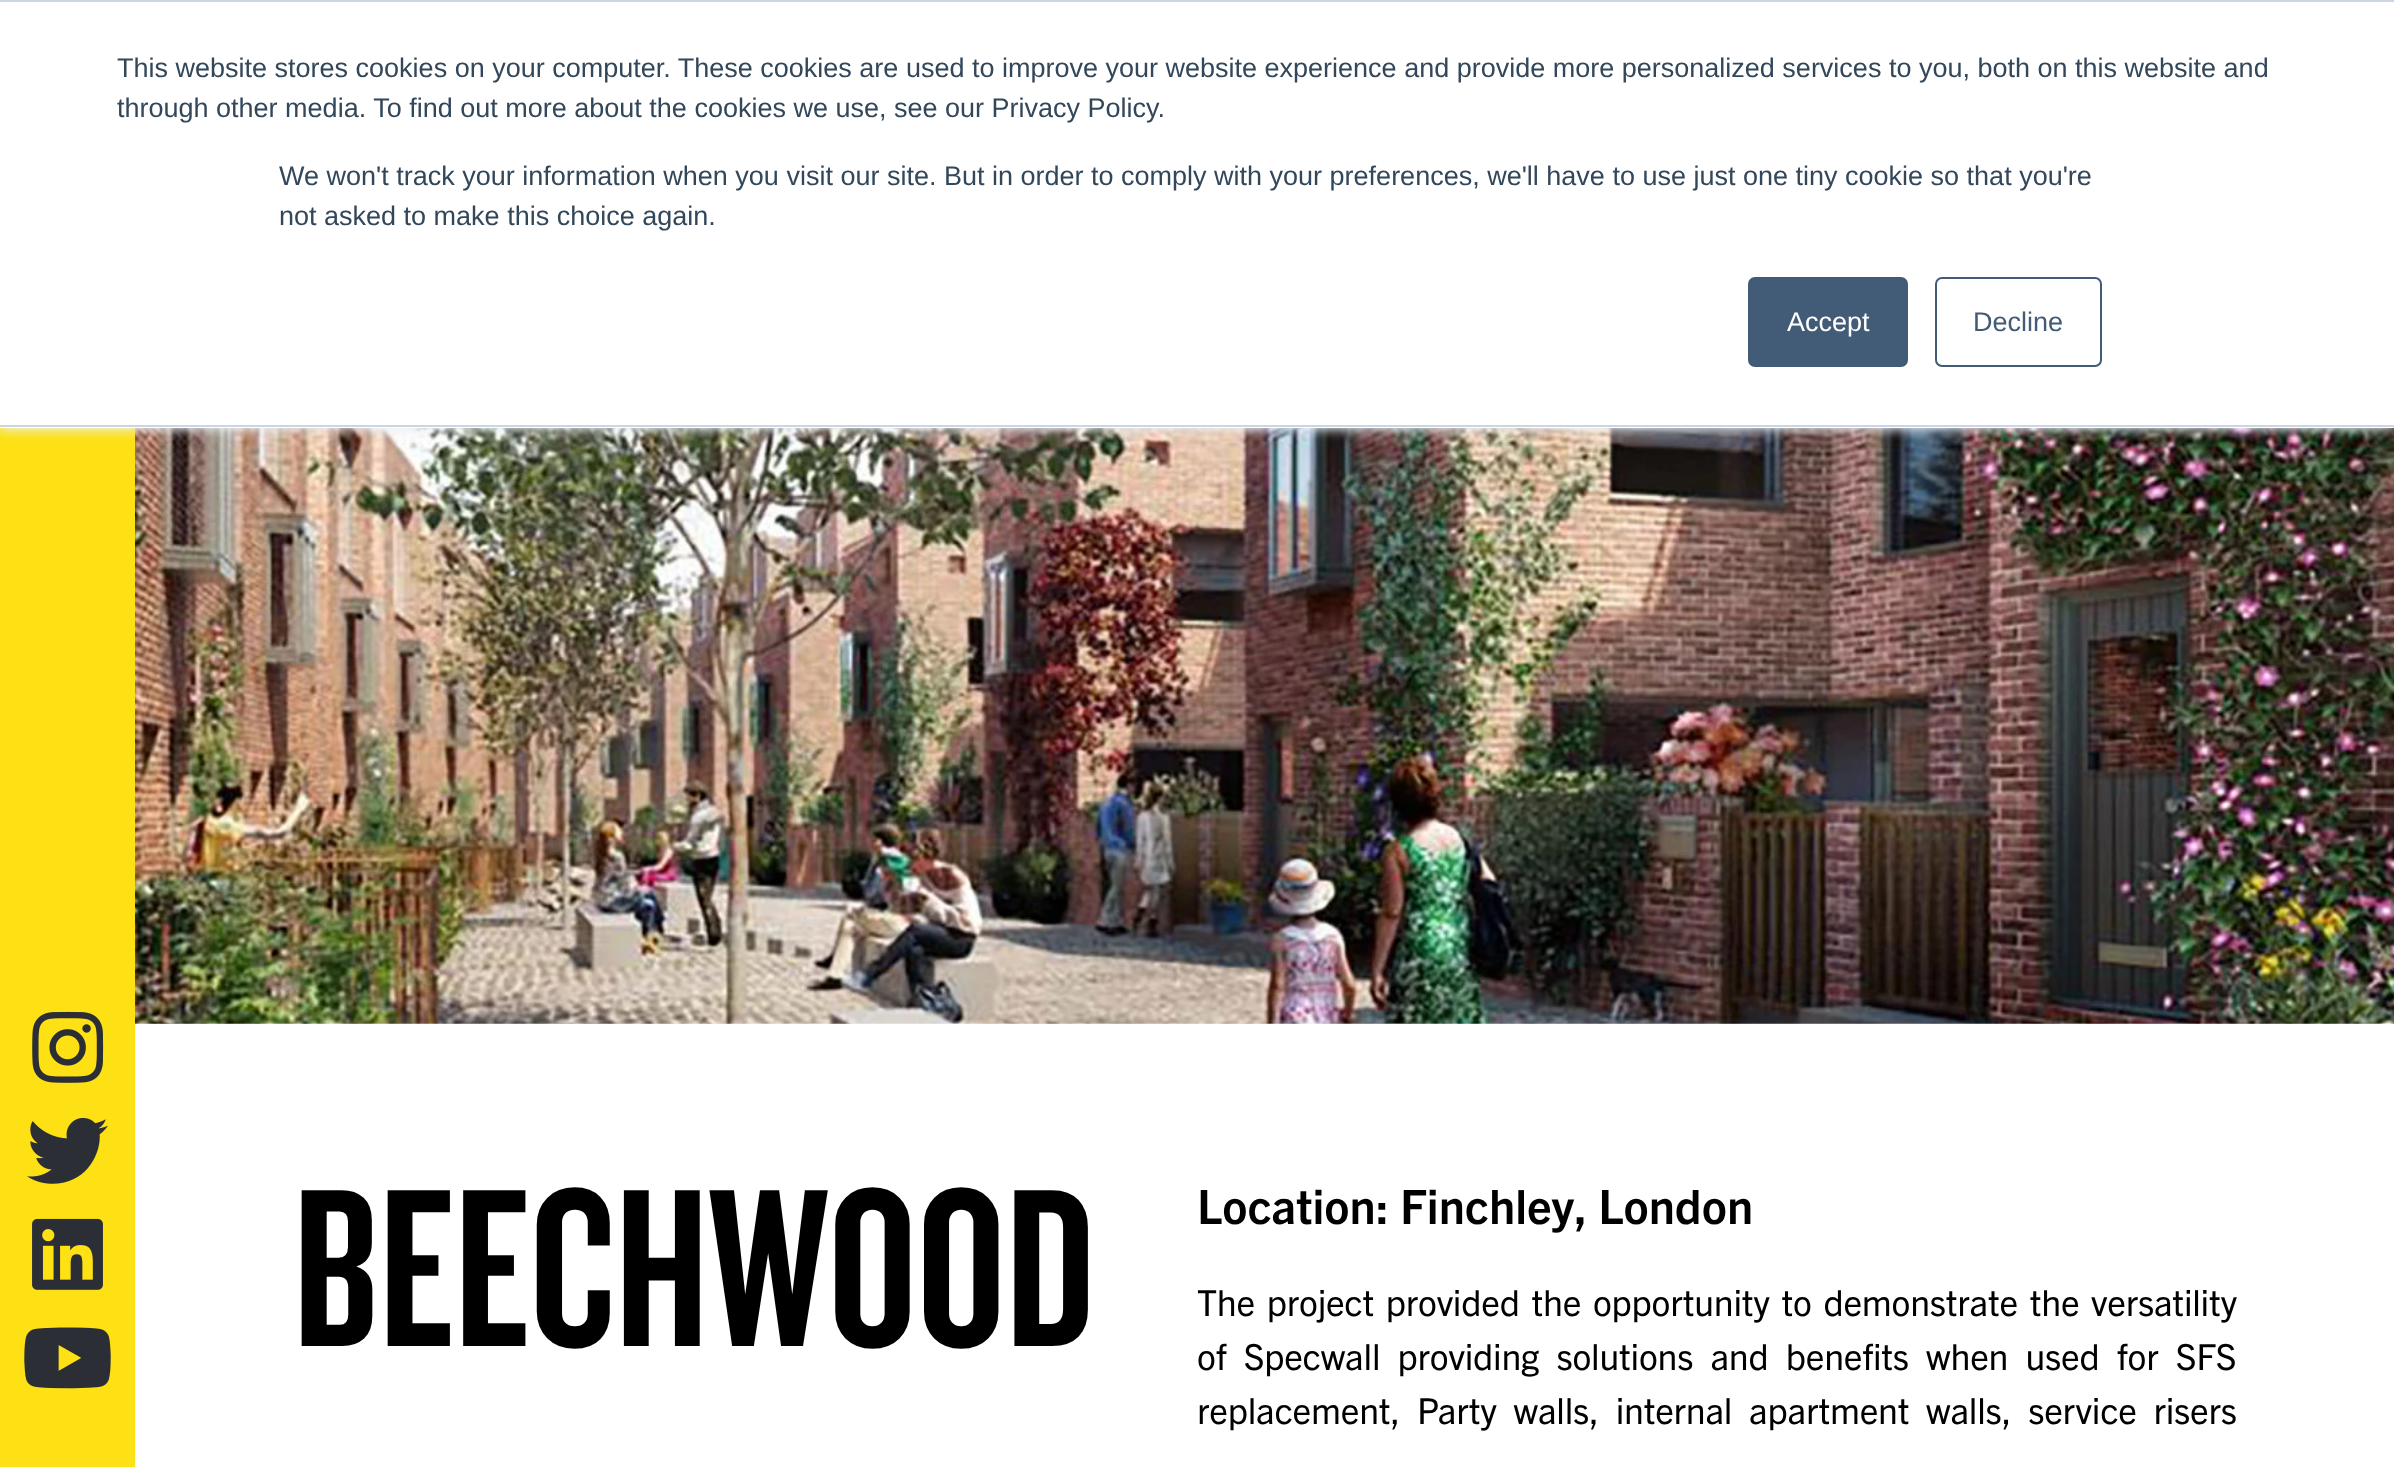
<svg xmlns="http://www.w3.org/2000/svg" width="2394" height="1467">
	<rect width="100%" height="100%" fill="#FFFFFF" />
	<rect x="0" y="428" width="135" height="1039" fill="#FEE115" />
	<image x="135" y="428" width="2259" height="596" href="assets/img5.png" />
	<rect x="0" y="2" width="2394" height="428" fill="#EAF0F6" filter="blur(5.5px)" />
	<rect x="0" y="2" width="2394" height="426" fill="#FFFFFF" />
	<rect x="0" y="0" width="2394" height="2" fill="#CBD6E2" />
	<rect x="0" y="425" width="2394" height="2" fill="#CBD6E2" />
	<g font-family="Liberation Sans" font-size="27" fill="#33475B">
		<text x="117" y="77">This website stores cookies on your computer. These cookies are used to improve your website experience and provide more personalized services to you, both on this website and</text>
		<text x="117" y="117">through other media. To find out more about the cookies we use, see our Privacy Policy.</text>
		<text x="279" y="185">We won't track your information when you visit our site. But in order to comply with your preferences, we'll have to use just one tiny cookie so that you're</text>
		<text x="279" y="225">not asked to make this choice again.</text>
	</g>
	<rect x="1749" y="278" width="158" height="88" rx="6" fill="#425B76" stroke="#425B76" stroke-width="2" />
	<text x="1787" y="331" font-family="Liberation Sans" font-size="27" fill="#FFFFFF">Accept</text>
	<rect x="1936" y="278" width="165" height="88" rx="6" fill="none" stroke="#425B76" stroke-width="2" />
	<text x="1973" y="331" font-family="Liberation Sans" font-size="27" fill="#425B76">Decline</text>
	<image x="32" y="1011" width="72" height="72" href="assets/img1.png" />
	<image x="27" y="1118" width="81" height="66" href="assets/img2.png" />
	<image x="32" y="1218" width="71" height="72" href="assets/img3.png" />
	<image x="24" y="1327" width="87" height="62" href="assets/img4.png" />
	<text x="293" y="1346" font-family="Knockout" font-size="234" font-weight="500" fill="#000000">BEECHWOOD</text>
	<text x="1197" y="1224" font-family="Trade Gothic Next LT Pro" font-size="47.25" font-weight="700" fill="#000000">Location: Finchley, London</text>
	<g font-family="Trade Gothic Next LT Pro" font-size="36" letter-spacing="-0.23" fill="#000000">
		<text x="1197" y="1316" word-spacing="3.75">The project provided the opportunity to demonstrate the versatility</text>
		<text x="1197" y="1370" word-spacing="9.25">of Specwall providing solutions and benefits when used for SFS</text>
		<text x="1197" y="1424" word-spacing="8.75">replacement, Party walls, internal apartment walls, service risers</text>
	</g>
</svg>
